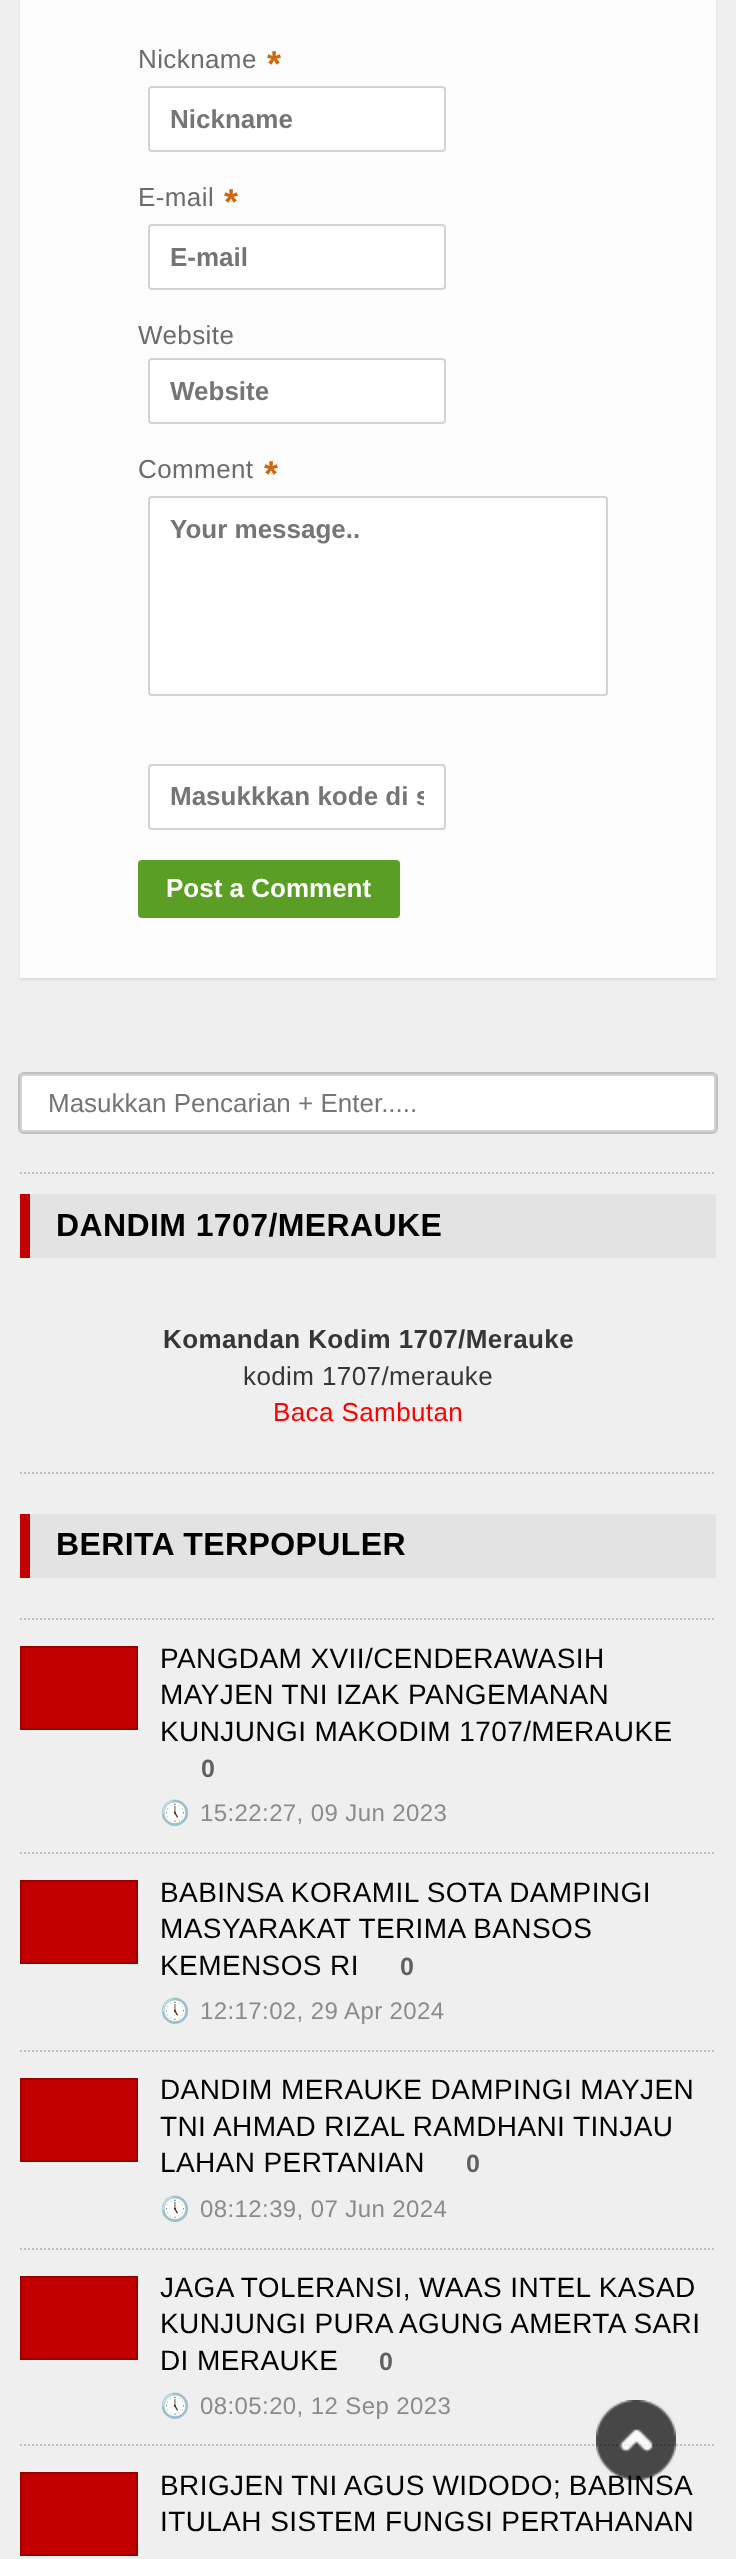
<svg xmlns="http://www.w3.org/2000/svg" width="736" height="2559">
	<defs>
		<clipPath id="clip1"><rect x="170" y="782" width="254" height="30" /></clipPath>
	</defs>
	<rect width="100%" height="100%" fill="#F0EFEF" />
	<rect x="20" y="-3" width="696" height="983" fill="#000000" fill-opacity="0.08" filter="blur(1px)" />
	<rect x="20" y="0" width="696" height="978" fill="#FCFCFC" />
	<text x="138" y="68" font-family="Liberation Sans" font-size="26" letter-spacing="0.4" fill="#6B6B6B">Nickname</text>
	<text x="267" y="76" font-family="Liberation Sans" font-size="36" font-weight="700" letter-spacing="0.4" fill="#CF680D">*</text>
	<rect x="149" y="87" width="296" height="64" rx="3" fill="#FFFFFF" stroke="#D3D3D3" stroke-width="2" />
	<text x="170" y="128" font-family="Liberation Sans" font-size="26" font-weight="700" fill="#757575">Nickname</text>
	<text x="138" y="206" font-family="Liberation Sans" font-size="26" letter-spacing="0.4" fill="#6B6B6B">E-mail</text>
	<text x="224" y="214" font-family="Liberation Sans" font-size="36" font-weight="700" letter-spacing="0.4" fill="#CF680D">*</text>
	<rect x="149" y="225" width="296" height="64" rx="3" fill="#FFFFFF" stroke="#D3D3D3" stroke-width="2" />
	<text x="170" y="266" font-family="Liberation Sans" font-size="26" font-weight="700" fill="#757575">E-mail</text>
	<text x="138" y="344" font-family="Liberation Sans" font-size="26" letter-spacing="0.4" fill="#6B6B6B">Website</text>
	<rect x="149" y="359" width="296" height="64" rx="3" fill="#FFFFFF" stroke="#D3D3D3" stroke-width="2" />
	<text x="170" y="400" font-family="Liberation Sans" font-size="26" font-weight="700" fill="#757575">Website</text>
	<text x="138" y="478" font-family="Liberation Sans" font-size="26" letter-spacing="0.4" fill="#6B6B6B">Comment</text>
	<text x="264" y="486" font-family="Liberation Sans" font-size="36" font-weight="700" letter-spacing="0.4" fill="#CF680D">*</text>
	<rect x="149" y="497" width="458" height="198" rx="3" fill="#FFFFFF" stroke="#D3D3D3" stroke-width="2" />
	<text x="170" y="538" font-family="Liberation Sans" font-size="26" font-weight="700" fill="#757575">Your message..</text>
	<rect x="149" y="765" width="296" height="64" rx="3" fill="#FFFFFF" stroke="#D3D3D3" stroke-width="2" />
	<g clip-path="url(#clip1)">
		<text x="170" y="805" font-family="Liberation Sans" font-size="26" font-weight="700" fill="#757575">Masukkkan kode di s</text>
	</g>
	<rect x="138" y="860" width="262" height="58" rx="4" fill="#5A9E25" />
	<text x="166" y="897" font-family="Liberation Sans" font-size="26" font-weight="700" fill="#FFFFFF">Post a Comment</text>
	<path d="M20 1173H716" fill="none" stroke="#C0BFBF" stroke-width="2" stroke-dasharray="2 2" />
	<rect x="19" y="1073" width="698" height="60" rx="5" fill="none" stroke="#C0BFBF" stroke-width="2" />
	<rect x="21" y="1075" width="694" height="56" rx="3" fill="#FFFFFF" stroke="#D3D3D3" stroke-width="2" />
	<text x="48" y="1112" font-family="Liberation Sans" font-size="26" fill="#757575">Masukkan Pencarian + Enter.....</text>
	<rect x="30" y="1194" width="686" height="64" fill="#E3E3E3" />
	<rect x="20" y="1194" width="10" height="64" fill="#C20000" />
	<text x="56" y="1236" font-family="Liberation Sans" font-size="32" font-weight="700" letter-spacing="0.4" fill="#000000">DANDIM 1707/MERAUKE</text>
	<path d="M20 1473H716" fill="none" stroke="#C0BFBF" stroke-width="2" stroke-dasharray="2 2" />
	<text x="163" y="1348" font-family="Liberation Sans" font-size="26" font-weight="700" letter-spacing="0.4" fill="#363635">Komandan Kodim 1707/Merauke</text>
	<text x="243" y="1385" font-family="Liberation Sans" font-size="26" letter-spacing="0.4" fill="#363635">kodim 1707/merauke</text>
	<text x="273" y="1421" font-family="Liberation Sans" font-size="26" letter-spacing="0.4" fill="#FF0000">Baca Sambutan</text>
	<rect x="30" y="1514" width="686" height="64" fill="#E3E3E3" />
	<rect x="20" y="1514" width="10" height="64" fill="#C20000" />
	<text x="56" y="1555" font-family="Liberation Sans" font-size="32" font-weight="700" letter-spacing="0.4" fill="#000000">BERITA TERPOPULER</text>
	<path d="M20 1619H716" fill="none" stroke="#C0BFBF" stroke-width="2" stroke-dasharray="2 2" />
	<path d="M20 1853H716" fill="none" stroke="#C0BFBF" stroke-width="2" stroke-dasharray="2 2" />
	<rect x="21" y="1647" width="116" height="82" fill="#C20000" stroke="#9B0000" stroke-width="2" />
	<g font-family="Liberation Sans" font-size="28" letter-spacing="0.4" fill="#000000">
		<text x="160" y="1668">PANGDAM XVII/CENDERAWASIH</text>
		<text x="160" y="1704">MAYJEN TNI IZAK PANGEMANAN</text>
		<text x="160" y="1741">KUNJUNGI MAKODIM 1707/MERAUKE</text>
	</g>
	<text x="201" y="1777" font-family="Liberation Sans" font-size="25" font-weight="700" fill="#606060">0</text>
	<text x="160" y="1821" font-family="Noto Color Emoji" font-size="24" letter-spacing="0.4" fill="#8B8B8B">🕔</text>
	<text x="200" y="1821" font-family="Liberation Sans" font-size="24" letter-spacing="0.4" fill="#8B8B8B">15:22:27, 09 Jun 2023</text>
	<path d="M20 2051H716" fill="none" stroke="#C0BFBF" stroke-width="2" stroke-dasharray="2 2" />
	<rect x="21" y="1881" width="116" height="82" fill="#C20000" stroke="#9B0000" stroke-width="2" />
	<g font-family="Liberation Sans" font-size="28" letter-spacing="0.4" fill="#000000">
		<text x="160" y="1902">BABINSA KORAMIL SOTA DAMPINGI</text>
		<text x="160" y="1938">MASYARAKAT TERIMA BANSOS</text>
		<text x="160" y="1975">KEMENSOS RI</text>
	</g>
	<text x="400" y="1975" font-family="Liberation Sans" font-size="25" font-weight="700" fill="#606060">0</text>
	<text x="160" y="2019" font-family="Noto Color Emoji" font-size="24" letter-spacing="0.4" fill="#8B8B8B">🕔</text>
	<text x="200" y="2019" font-family="Liberation Sans" font-size="24" letter-spacing="0.4" fill="#8B8B8B">12:17:02, 29 Apr 2024</text>
	<path d="M20 2249H716" fill="none" stroke="#C0BFBF" stroke-width="2" stroke-dasharray="2 2" />
	<rect x="21" y="2079" width="116" height="82" fill="#C20000" stroke="#9B0000" stroke-width="2" />
	<g font-family="Liberation Sans" font-size="28" letter-spacing="0.4" fill="#000000">
		<text x="160" y="2099">DANDIM MERAUKE DAMPINGI MAYJEN</text>
		<text x="160" y="2136">TNI AHMAD RIZAL RAMDHANI TINJAU</text>
		<text x="160" y="2172">LAHAN PERTANIAN</text>
	</g>
	<text x="466" y="2172" font-family="Liberation Sans" font-size="25" font-weight="700" fill="#606060">0</text>
	<text x="160" y="2217" font-family="Noto Color Emoji" font-size="24" letter-spacing="0.4" fill="#8B8B8B">🕔</text>
	<text x="200" y="2217" font-family="Liberation Sans" font-size="24" letter-spacing="0.4" fill="#8B8B8B">08:12:39, 07 Jun 2024</text>
	<path d="M20 2445H716" fill="none" stroke="#C0BFBF" stroke-width="2" stroke-dasharray="2 2" />
	<rect x="21" y="2277" width="116" height="82" fill="#C20000" stroke="#9B0000" stroke-width="2" />
	<g font-family="Liberation Sans" font-size="28" letter-spacing="0.4" fill="#000000">
		<text x="160" y="2297">JAGA TOLERANSI, WAAS INTEL KASAD</text>
		<text x="160" y="2333">KUNJUNGI PURA AGUNG AMERTA SARI</text>
		<text x="160" y="2370">DI MERAUKE</text>
	</g>
	<text x="379" y="2370" font-family="Liberation Sans" font-size="25" font-weight="700" fill="#606060">0</text>
	<text x="160" y="2414" font-family="Noto Color Emoji" font-size="24" letter-spacing="0.4" fill="#8B8B8B">🕔</text>
	<text x="200" y="2414" font-family="Liberation Sans" font-size="24" letter-spacing="0.4" fill="#8B8B8B">08:05:20, 12 Sep 2023</text>
	<rect x="21" y="2473" width="116" height="82" fill="#C20000" stroke="#9B0000" stroke-width="2" />
	<g font-family="Liberation Sans" font-size="28" letter-spacing="0.4" fill="#000000">
		<text x="160" y="2495" word-spacing="-0.5">BRIGJEN TNI AGUS WIDODO; BABINSA</text>
		<text x="160" y="2531">ITULAH SISTEM FUNGSI PERTAHANAN</text>
	</g>
	<image x="596" y="2400" width="80" height="80" href="assets/img1.png" />
</svg>
